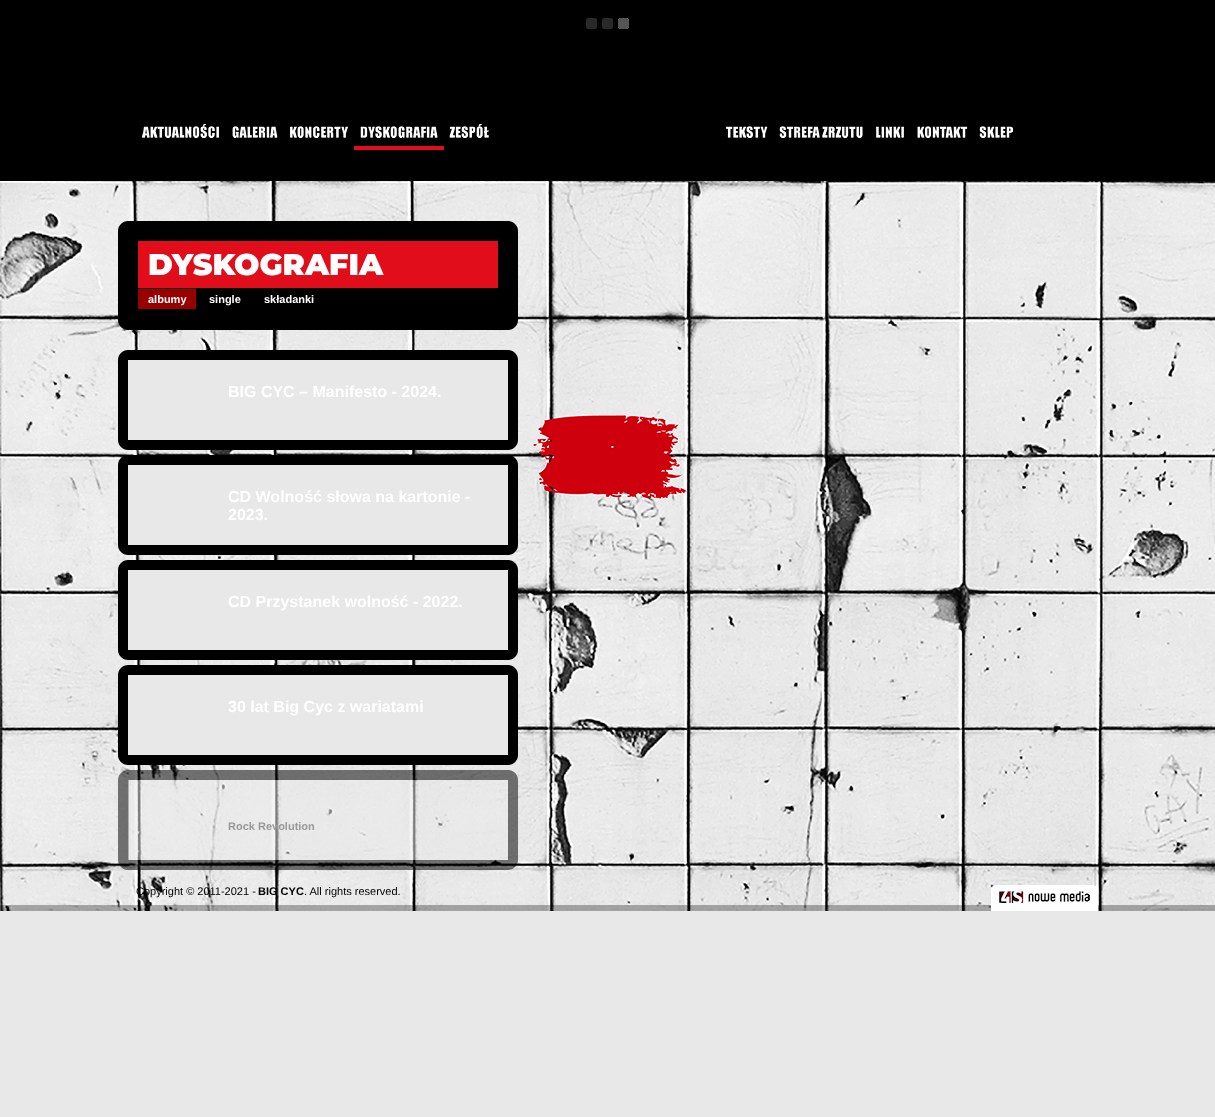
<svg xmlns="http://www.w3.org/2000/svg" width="1215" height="1117">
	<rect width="100%" height="100%" fill="#E8E8E8" />
	<rect x="0" y="0" width="1215" height="181" fill="#000000" />
	<image x="586" y="18" width="43" height="11" href="assets/img1.png" />
	<image x="0" y="181" width="1215" height="730" href="assets/img2.png" />
	<image x="142" y="124" width="78" height="14" href="assets/img3.png" />
	<image x="232" y="126" width="46" height="12" href="assets/img4.png" />
	<image x="289" y="126" width="59" height="12" href="assets/img5.png" />
	<image x="354" y="126" width="90" height="24" href="assets/img6.png" />
	<image x="449" y="124" width="40" height="14" href="assets/img7.png" />
	<image x="726" y="126" width="42" height="12" href="assets/img8.png" />
	<image x="779" y="126" width="84" height="12" href="assets/img9.png" />
	<image x="876" y="126" width="28" height="12" href="assets/img10.png" />
	<image x="917" y="126" width="51" height="12" href="assets/img11.png" />
	<image x="979" y="126" width="34" height="12" href="assets/img12.png" />
	<path d="M128 221H508C513.5 221 518 225.5 518 231H118C118 225.5 122.5 221 128 221Z" fill="#000000" />
	<rect x="118" y="231" width="10" height="89" fill="#000000" />
	<rect x="128" y="231" width="390" height="89" fill="#000000" />
	<rect x="138" y="241" width="360" height="47" fill="#E10D1A" />
	<text x="148" y="275" font-family="Montserrat" font-size="30" font-weight="100" fill="#FFFFFF">DYSKOGRAFIA</text>
	<rect x="138" y="289" width="58" height="20" fill="#990000" />
	<g font-family="Liberation Sans" font-size="11" font-weight="700" fill="#FFFFFF">
		<text x="148" y="303">albumy</text>
		<text x="209" y="303">single</text>
		<text x="264" y="303">składanki</text>
	</g>
	<path d="M118 320H518C518 325.5 513.5 330 508 330H128C122.5 330 118 325.5 118 320Z" fill="#000000" />
	<path d="M128 350H508C513.5 350 518 354.5 518 360H118C118 354.5 122.5 350 128 350Z" fill="#000000" />
	<rect x="118" y="360" width="10" height="80" fill="#000000" />
	<rect x="508" y="360" width="10" height="80" fill="#000000" />
	<rect x="128" y="360" width="380" height="80" fill="#E8E8E8" />
	<text x="228" y="397" font-family="Liberation Sans" font-size="16" font-weight="700" fill="#FFFFFF">BIG CYC – Manifesto - 2024.</text>
	<path d="M118 440H518C518 445.5 513.5 450 508 450H128C122.5 450 118 445.5 118 440Z" fill="#000000" />
	<path d="M128 455H508C513.5 455 518 459.5 518 465H118C118 459.5 122.5 455 128 455Z" fill="#000000" />
	<rect x="118" y="465" width="10" height="80" fill="#000000" />
	<rect x="508" y="465" width="10" height="80" fill="#000000" />
	<rect x="128" y="465" width="380" height="80" fill="#E8E8E8" />
	<g font-family="Liberation Sans" font-size="16" font-weight="700" fill="#FFFFFF">
		<text x="228" y="502">CD Wolność słowa na kartonie -</text>
		<text x="228" y="520">2023.</text>
	</g>
	<path d="M118 545H518C518 550.5 513.5 555 508 555H128C122.5 555 118 550.5 118 545Z" fill="#000000" />
	<path d="M128 560H508C513.5 560 518 564.5 518 570H118C118 564.5 122.5 560 128 560Z" fill="#000000" />
	<rect x="118" y="570" width="10" height="80" fill="#000000" />
	<rect x="508" y="570" width="10" height="80" fill="#000000" />
	<rect x="128" y="570" width="380" height="80" fill="#E8E8E8" />
	<text x="228" y="607" font-family="Liberation Sans" font-size="16" font-weight="700" fill="#FFFFFF">CD Przystanek wolność - 2022.</text>
	<path d="M118 650H518C518 655.5 513.5 660 508 660H128C122.5 660 118 655.5 118 650Z" fill="#000000" />
	<path d="M128 665H508C513.5 665 518 669.5 518 675H118C118 669.5 122.5 665 128 665Z" fill="#000000" />
	<rect x="118" y="675" width="10" height="80" fill="#000000" />
	<rect x="508" y="675" width="10" height="80" fill="#000000" />
	<rect x="128" y="675" width="380" height="80" fill="#E8E8E8" />
	<text x="228" y="712" font-family="Liberation Sans" font-size="16" font-weight="700" fill="#FFFFFF">30 lat Big Cyc z wariatami</text>
	<path d="M118 755H518C518 760.5 513.5 765 508 765H128C122.5 765 118 760.5 118 755Z" fill="#000000" />
	<path d="M128 770H508C513.5 770 518 774.5 518 780H118C118 774.5 122.5 770 128 770Z" fill="#000000" fill-opacity="0.53" />
	<rect x="118" y="780" width="11" height="80" fill="#000000" fill-opacity="0.53" />
	<rect x="508" y="780" width="10" height="80" fill="#000000" fill-opacity="0.53" />
	<rect x="128" y="780" width="380" height="80" fill="#E8E8E8" fill-opacity="0.53" />
	<text x="228" y="830" font-family="Liberation Sans" font-size="11" font-weight="700" fill="#999999">Rock Revolution</text>
	<path d="M118 860H518C518 865.5 513.5 870 508 870H128C122.5 870 118 865.5 118 860Z" fill="#000000" fill-opacity="0.53" />
	<rect x="0" y="905" width="1215" height="6" fill="#000000" fill-opacity="0.3" />
	<text x="136" y="895" font-family="Liberation Sans" font-size="11" fill="#000000">Copyright © 2011-2021 -</text>
	<text x="258" y="895" font-family="Liberation Sans" font-size="11" font-weight="700" fill="#000000">BIG CYC</text>
	<text x="304" y="895" font-family="Liberation Sans" font-size="11" fill="#000000">. All rights reserved.</text>
	<image x="991" y="885" width="107" height="26" href="assets/img13.png" />
</svg>
